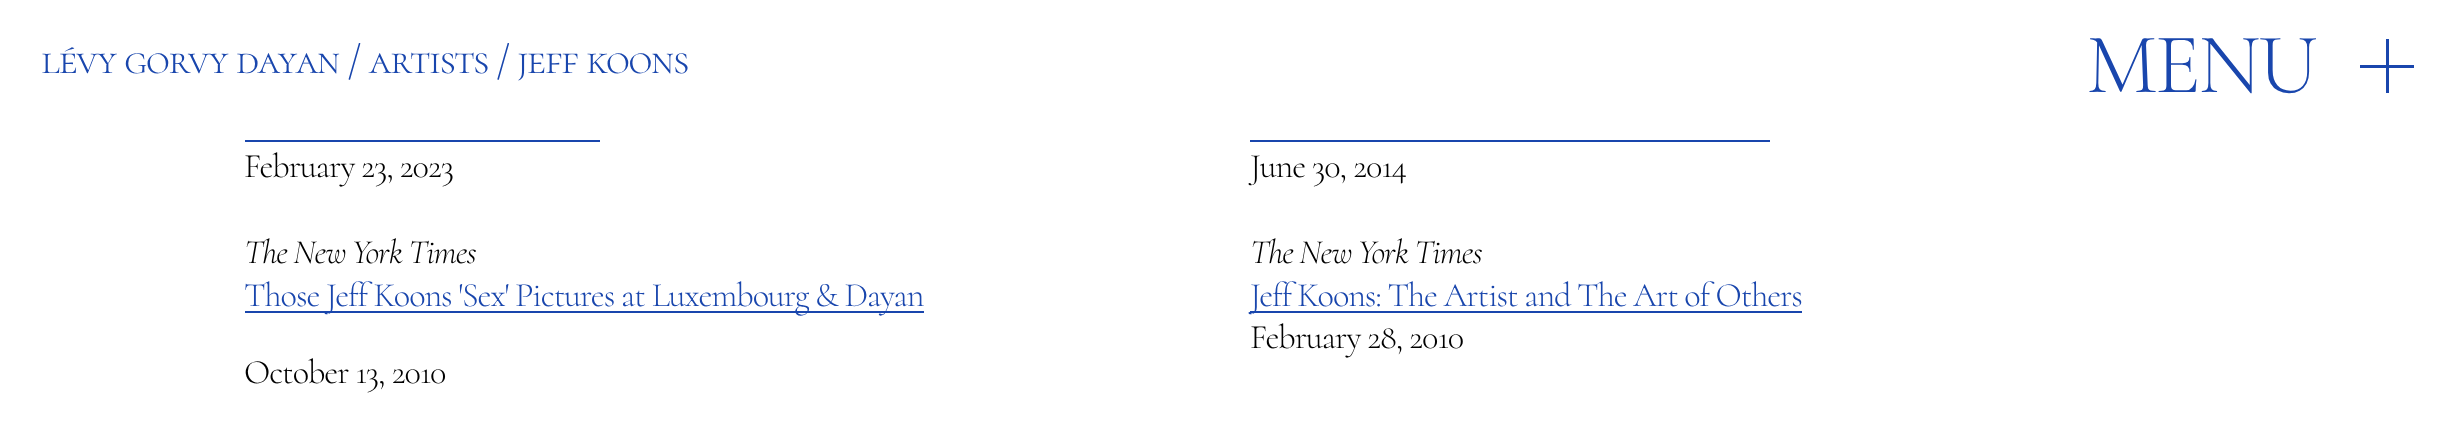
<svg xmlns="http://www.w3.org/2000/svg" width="2457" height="427">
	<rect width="100%" height="100%" fill="#FFFFFF" />
	<text x="41" y="73" font-family="Cormorant SC" font-size="41.1" font-weight="300" letter-spacing="-1.25" fill="#1946AD">lévy gorvy dayan / artists / jeff koons</text>
	<text x="2086" y="92" font-family="Cormorant" font-size="86" font-weight="300" letter-spacing="-2.5" fill="#1946AD">MENU</text>
	<rect x="2386" y="39" width="3" height="54" fill="#1946AD" />
	<rect x="2360" y="65" width="54" height="3" fill="#1946AD" />
	<rect x="245" y="140" width="355" height="2" fill="#1946AD" />
	<text x="244" y="177" font-family="Cormorant" font-size="34.25" font-weight="300" letter-spacing="-1.03" fill="#000000">February 23, 2023</text>
	<rect x="1250" y="140" width="520" height="2" fill="#1946AD" />
	<text x="1250" y="177" font-family="Cormorant" font-size="34.25" font-weight="300" letter-spacing="-1.03" fill="#000000">June 30, 2014</text>
	<text x="244" y="263" word-spacing="-0.5" font-family="Cormorant" font-size="34.25" font-weight="300" font-style="italic" letter-spacing="-1.03" fill="#000000">The New York Times</text>
	<rect x="245" y="311" width="679" height="2" fill="#1946AD" />
	<text x="244" y="306" word-spacing="-0.25" font-family="Cormorant" font-size="34.25" font-weight="300" letter-spacing="-1.03" fill="#1946AD">Those Jeff Koons 'Sex' Pictures at Luxembourg &amp; Dayan</text>
	<text x="244" y="383" font-family="Cormorant" font-size="34.25" font-weight="300" letter-spacing="-1.03" fill="#000000">October 13, 2010</text>
	<text x="1250" y="263" word-spacing="-0.5" font-family="Cormorant" font-size="34.25" font-weight="300" font-style="italic" letter-spacing="-1.03" fill="#000000">The New York Times</text>
	<rect x="1250" y="311" width="552" height="2" fill="#1946AD" />
	<text x="1250" y="306" word-spacing="-0.5" font-family="Cormorant" font-size="34.25" font-weight="300" letter-spacing="-1.03" fill="#1946AD">Jeff Koons: The Artist and The Art of Others</text>
	<text x="1250" y="348" font-family="Cormorant" font-size="34.25" font-weight="300" letter-spacing="-1.03" fill="#000000">February 28, 2010</text>
</svg>
